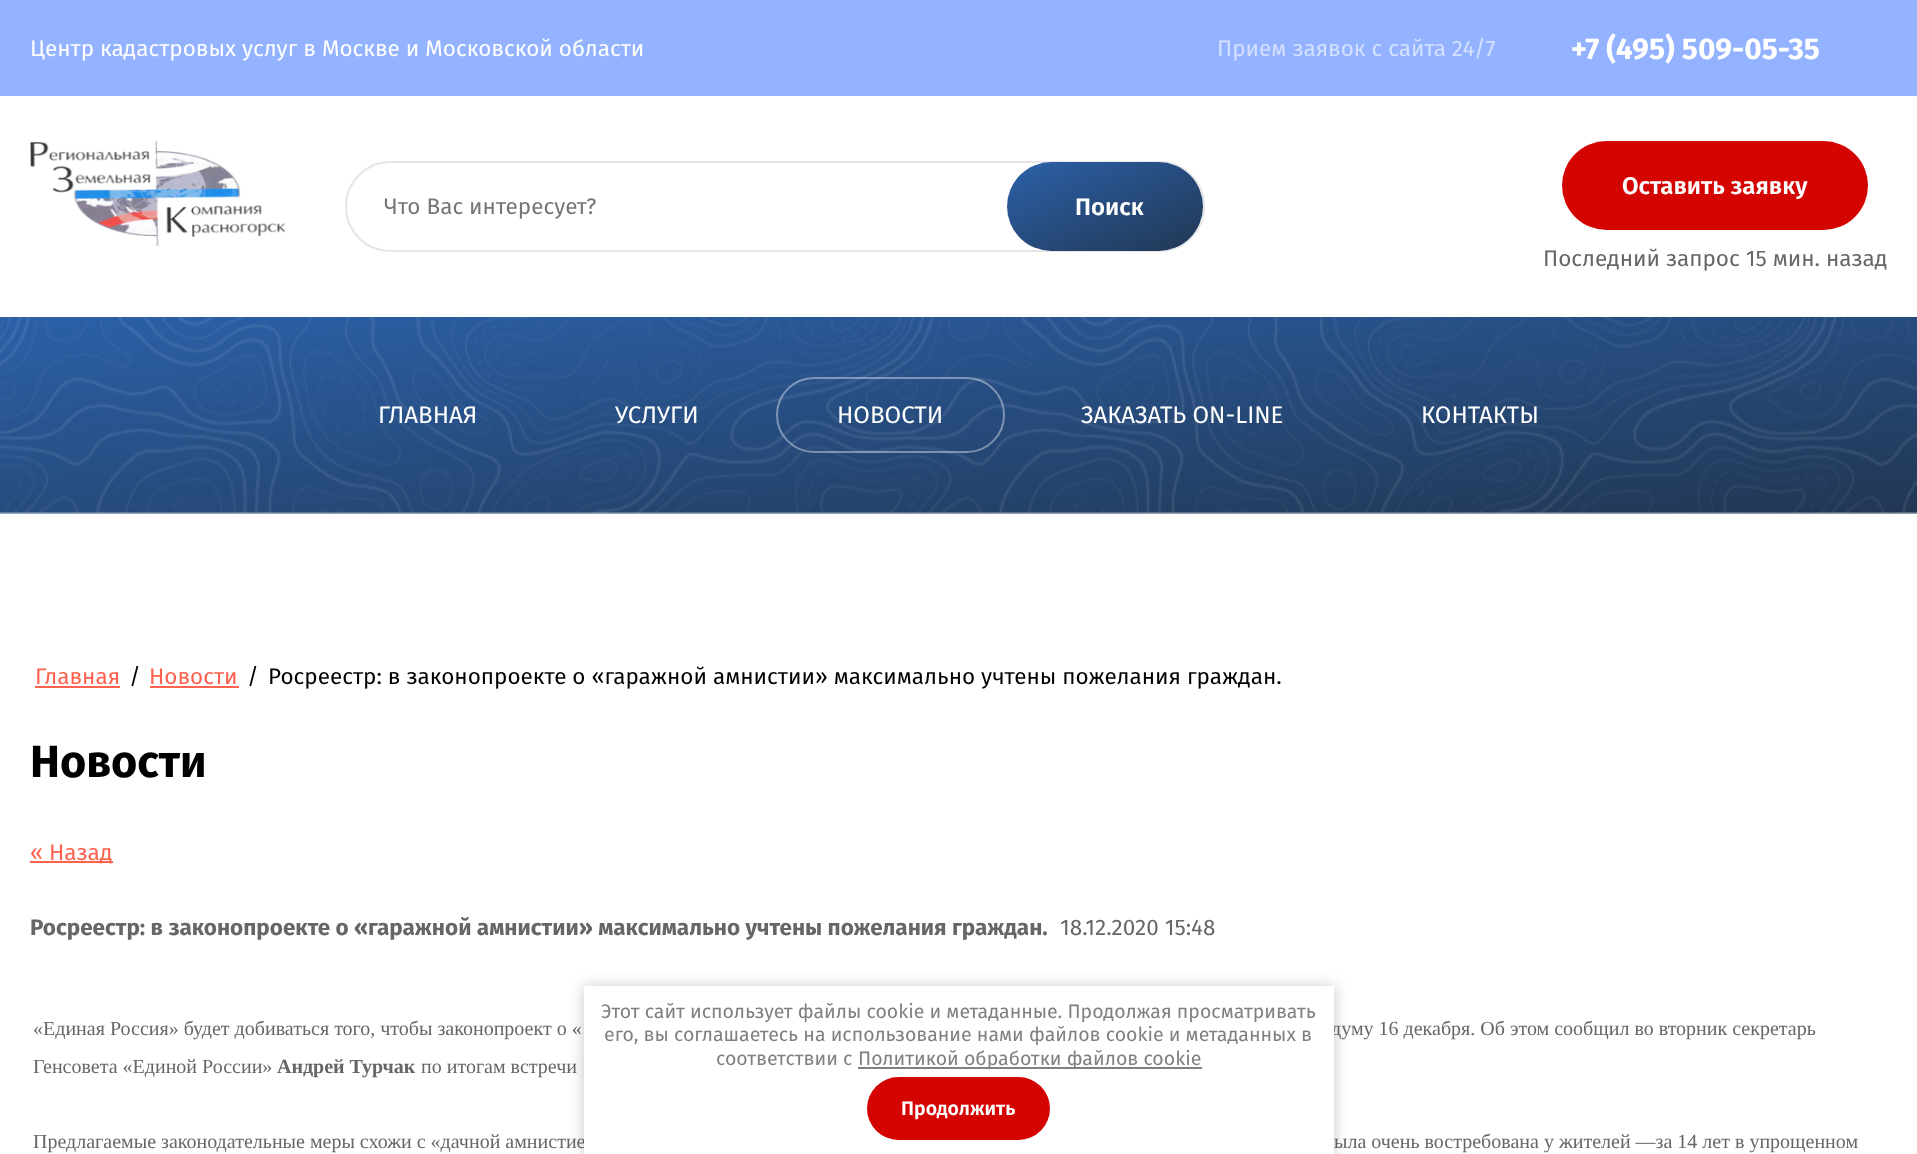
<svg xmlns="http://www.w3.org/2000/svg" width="1917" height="1154">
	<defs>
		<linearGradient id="g1" gradientUnits="userSpaceOnUse" x1="1138" y1="280" x2="1072" y2="133"><stop offset="0" stop-color="#223753" /><stop offset="1" stop-color="#2B61A9" /></linearGradient>
	</defs>
	<rect width="100%" height="100%" fill="#FFFFFF" />
	<rect x="0" y="0" width="1917" height="96" fill="#93B2FF" />
	<text x="30" y="56" font-family="Fira Sans" font-size="22.5" fill="#FFFFFF">Центр кадастровых услуг в Москве и Московской области</text>
	<text x="1217" y="56" font-family="Fira Sans" font-size="22.5" fill="#D4E0FF">Прием заявок с сайта 24/7</text>
	<text x="1571" y="59" font-family="Fira Sans" font-size="30" font-weight="700" fill="#FFFFFF">+7 (495) 509-05-35</text>
	<image x="30" y="141" width="255" height="105" href="assets/img1.png" />
	<rect x="346" y="162" width="858" height="89" rx="44.5" fill="none" stroke="#E6E6E6" stroke-width="2" />
	<text x="384" y="214" font-family="Fira Sans" font-size="22.5" fill="#757575">Что Вас интересует?</text>
	<rect x="1007" y="162" width="196" height="89" rx="44.5" fill="url(#g1)" />
	<text x="1075" y="215" font-family="Fira Sans" font-size="24" font-weight="600" fill="#FFFFFF">Поиск</text>
	<rect x="1562" y="141" width="306" height="89" rx="44.5" fill="#D40400" />
	<text x="1622" y="194" font-family="Fira Sans" font-size="24" font-weight="600" fill="#FFFFFF">Оставить заявку</text>
	<text x="1543" y="266" font-family="Fira Sans" font-size="22.5" fill="#666666">Последний запрос 15 мин. назад</text>
	<image x="0" y="317" width="1917" height="197" href="assets/img2.png" />
	<g font-family="Fira Sans" font-size="24" fill="#FFFFFF">
		<text x="378" y="423">ГЛАВНАЯ</text>
		<text x="615" y="423">УСЛУГИ</text>
	</g>
	<rect x="777" y="378" width="227" height="74" rx="37" fill="none" stroke="#FFFFFF" stroke-opacity="0.4" stroke-width="2" />
	<g font-family="Fira Sans" font-size="24" fill="#FFFFFF">
		<text x="837" y="423">НОВОСТИ</text>
		<text x="1081" y="423">ЗАКАЗАТЬ ON-LINE</text>
		<text x="1421" y="423">КОНТАКТЫ</text>
	</g>
	<text x="35" y="684" font-family="Fira Sans" font-size="22.5" fill="#FF614F">Главная</text>
	<rect x="35" y="686" width="85" height="2" fill="#FF614F" />
	<text x="129" y="684" font-family="Fira Sans" font-size="22.5" fill="#000000">/</text>
	<text x="149" y="684" font-family="Fira Sans" font-size="22.5" fill="#FF614F">Новости</text>
	<rect x="150" y="686" width="89" height="2" fill="#FF614F" />
	<g font-family="Fira Sans" font-size="22.5" fill="#000000">
		<text x="247" y="684">/</text>
		<text x="268" y="684">Росреестр: в законопроекте о «гаражной амнистии» максимально учтены пожелания граждан.</text>
	</g>
	<text x="30" y="777" font-family="Fira Sans" font-size="45" font-weight="700" fill="#000000">Новости</text>
	<rect x="30" y="861" width="83" height="2" fill="#FF614F" />
	<text x="30" y="860" font-family="Fira Sans" font-size="22.5" fill="#FF614F">« Назад</text>
	<text x="30" y="935" font-family="Fira Sans" font-size="22.5" font-weight="700" fill="#666666">Росреестр: в законопроекте о «гаражной амнистии» максимально учтены пожелания граждан.</text>
	<text x="1060" y="935" font-family="Fira Sans" font-size="22.5" fill="#666666">18.12.2020 15:48</text>
	<g font-family="Liberation Serif" font-size="20" fill="#666666">
		<text x="33" y="1035">«Единая Россия» будет добиваться того, чтобы законопроект о «</text>
		<text x="1331" y="1035">думу 16 декабря. Об этом сообщил во вторник секретарь</text>
		<text x="33" y="1073">Генсовета «Единой России»</text>
	</g>
	<text x="277" y="1073" font-family="Liberation Serif" font-size="20" font-weight="700" fill="#666666">Андрей Турчак</text>
	<g font-family="Liberation Serif" font-size="20" fill="#666666">
		<text x="421" y="1073">по итогам встречи</text>
		<text x="33" y="1148">Предлагаемые законодательные меры схожи с «дачной амнистие</text>
		<text x="1334" y="1148">ыла очень востребована у жителей —за 14 лет в упрощенном</text>
	</g>
	<rect x="584" y="987" width="750" height="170" fill="#000000" fill-opacity="0.23" filter="blur(7.5px)" />
	<rect x="584" y="986" width="750" height="168" fill="#FFFFFF" />
	<g font-family="Fira Sans" font-size="19.5" fill="#808080">
		<text x="601" y="1018">Этот сайт использует файлы cookie и метаданные. Продолжая просматривать</text>
		<text x="604" y="1041">его, вы соглашаетесь на использование нами файлов cookie и метаданных в</text>
		<text x="716" y="1065">соответствии с</text>
	</g>
	<rect x="858" y="1067" width="344" height="2" fill="#808080" />
	<text x="858" y="1065" font-family="Fira Sans" font-size="19.5" fill="#808080">Политикой обработки файлов cookie</text>
	<rect x="867" y="1077" width="183" height="63" rx="31.5" fill="#D40400" />
	<text x="901" y="1115" font-family="Fira Sans" font-size="19.5" font-weight="600" fill="#FFFFFF">Продолжить</text>
</svg>
